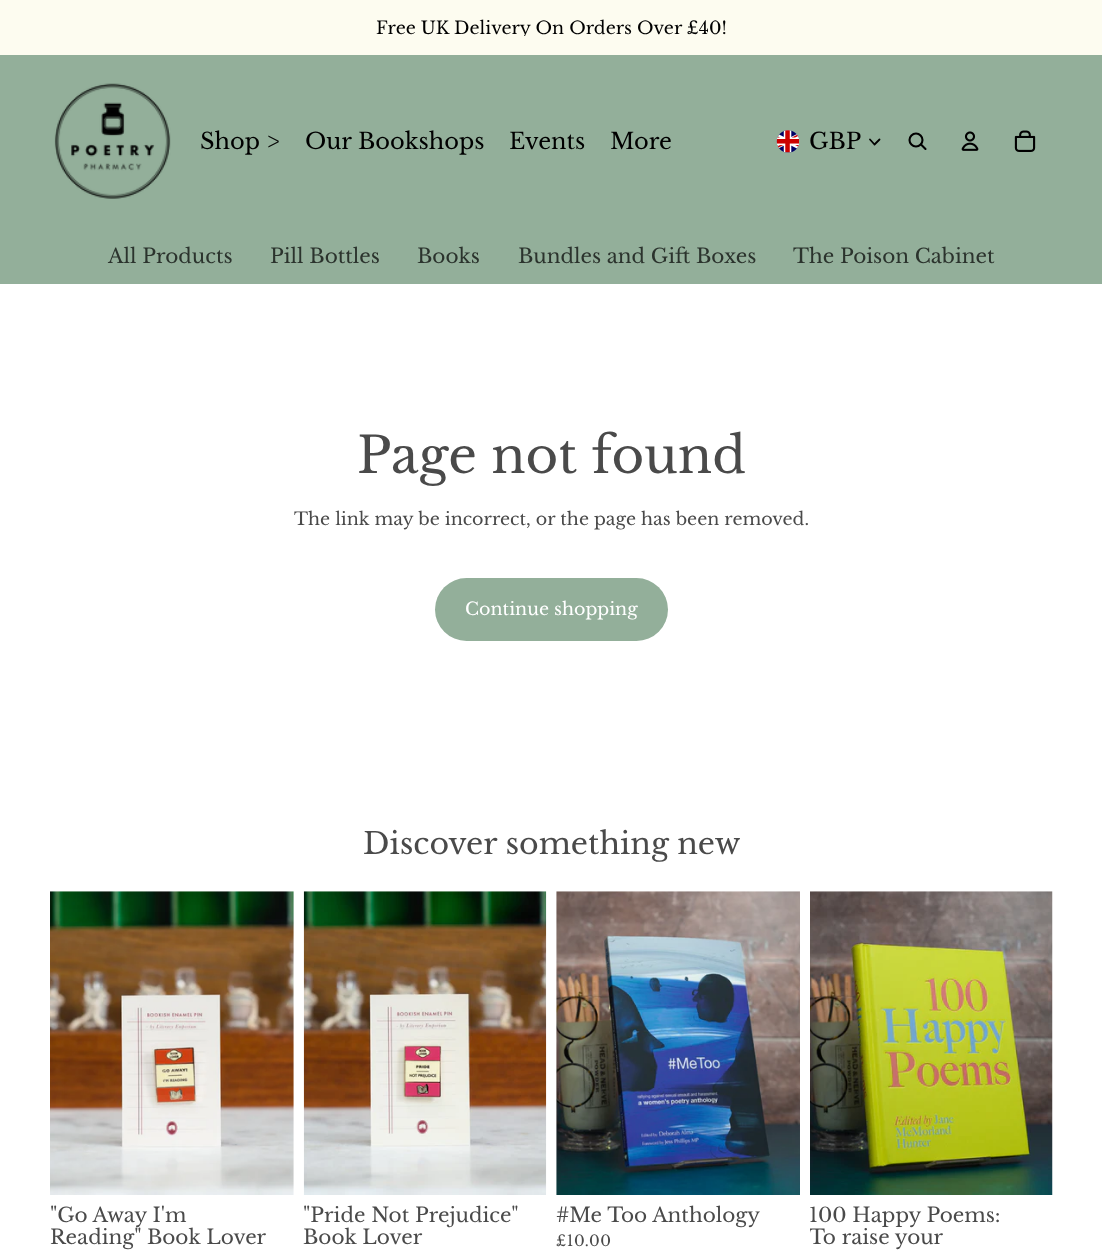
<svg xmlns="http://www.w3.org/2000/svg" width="1102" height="1256">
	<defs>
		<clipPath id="clip1"><rect x="126" y="19" width="850" height="17" /></clipPath>
		<clipPath id="clip2"><rect x="810" y="891" width="243" height="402" /></clipPath>
	</defs>
	<rect width="100%" height="100%" fill="#FFFFFF" />
	<rect x="0" y="0" width="1102" height="55" fill="#FDFCF0" />
	<g clip-path="url(#clip1)">
		<text x="376" y="34" font-family="Libre Baskerville" font-size="17.5" fill="#000000">Free UK Delivery On Orders Over £40!</text>
	</g>
	<rect x="0" y="55" width="1102" height="229" fill="#93AF9A" />
	<image x="54" y="83" width="117" height="116" href="assets/img1.png" />
	<g font-family="Libre Baskerville" font-size="22.5" fill="#000000">
		<text x="200" y="149">Shop &gt;</text>
		<text x="305" y="149">Our Bookshops</text>
		<text x="509" y="149">Events</text>
		<text x="610" y="149">More</text>
	</g>
	<image x="776" y="130" width="23" height="23" href="assets/img2.png" />
	<text x="809" y="149" font-family="Libre Baskerville" font-size="22.5" fill="#000000">GBP</text>
	<path d="M879.5 139.5L874.5 144.5L870 139.5" fill="none" stroke="#000000" stroke-width="1.8" stroke-linecap="round" stroke-linejoin="round" />
	<circle cx="916" cy="140" r="6.5" fill="none" stroke="#000000" stroke-width="2.1" />
	<path d="M921 144.5L925.5 149" fill="none" stroke="#000000" stroke-width="2.1" stroke-linecap="round" stroke-linejoin="round" />
	<image x="961" y="131" width="18" height="20" href="assets/img3.png" />
	<image x="1014" y="130" width="22" height="22" href="assets/img4.png" />
	<g font-family="Libre Baskerville" font-size="20" fill="#2B332D">
		<text x="108" y="263">All Products</text>
		<text x="270" y="263">Pill Bottles</text>
		<text x="417" y="263">Books</text>
		<text x="518" y="263">Bundles and Gift Boxes</text>
		<text x="793" y="263">The Poison Cabinet</text>
	</g>
	<text x="357" y="473" font-family="Libre Baskerville" font-size="50" fill="#4A4A4A">Page not found</text>
	<text x="294" y="525" font-family="Libre Baskerville" font-size="17.5" fill="#4A4A4A">The link may be incorrect, or the page has been removed.</text>
	<rect x="435" y="578" width="233" height="63" rx="31.5" fill="#93AF9A" />
	<text x="465" y="615" font-family="Libre Baskerville" font-size="17.5" fill="#FFFFFF">Continue shopping</text>
	<text x="363" y="854" font-family="Libre Baskerville" font-size="30" fill="#4A4A4A">Discover something new</text>
	<image x="50" y="891" width="244" height="304" href="assets/img5.png" />
	<g font-family="Libre Baskerville" font-size="20" fill="#4A4A4A">
		<text x="50" y="1222">"Go Away I'm</text>
		<text x="50" y="1244">Reading" Book Lover</text>
	</g>
	<image x="303" y="891" width="244" height="304" href="assets/img6.png" />
	<g font-family="Libre Baskerville" font-size="20" fill="#4A4A4A">
		<text x="303" y="1222">"Pride Not Prejudice"</text>
		<text x="303" y="1244">Book Lover</text>
	</g>
	<image x="556" y="891" width="244" height="304" href="assets/img7.png" />
	<text x="556" y="1222" font-family="Libre Baskerville" font-size="20" fill="#4A4A4A">#Me Too Anthology</text>
	<text x="556" y="1246" font-family="Libre Baskerville" font-size="15" letter-spacing="0.5" fill="#4A4A4A">£10.00</text>
	<image x="810" y="891" width="243" height="304" href="assets/img8.png" />
	<text x="809" y="1222" font-family="Libre Baskerville" font-size="20" fill="#4A4A4A">100 Happy Poems:</text>
	<g clip-path="url(#clip2)">
		<text x="809" y="1244" font-family="Libre Baskerville" font-size="20" fill="#4A4A4A">To raise your</text>
	</g>
</svg>
